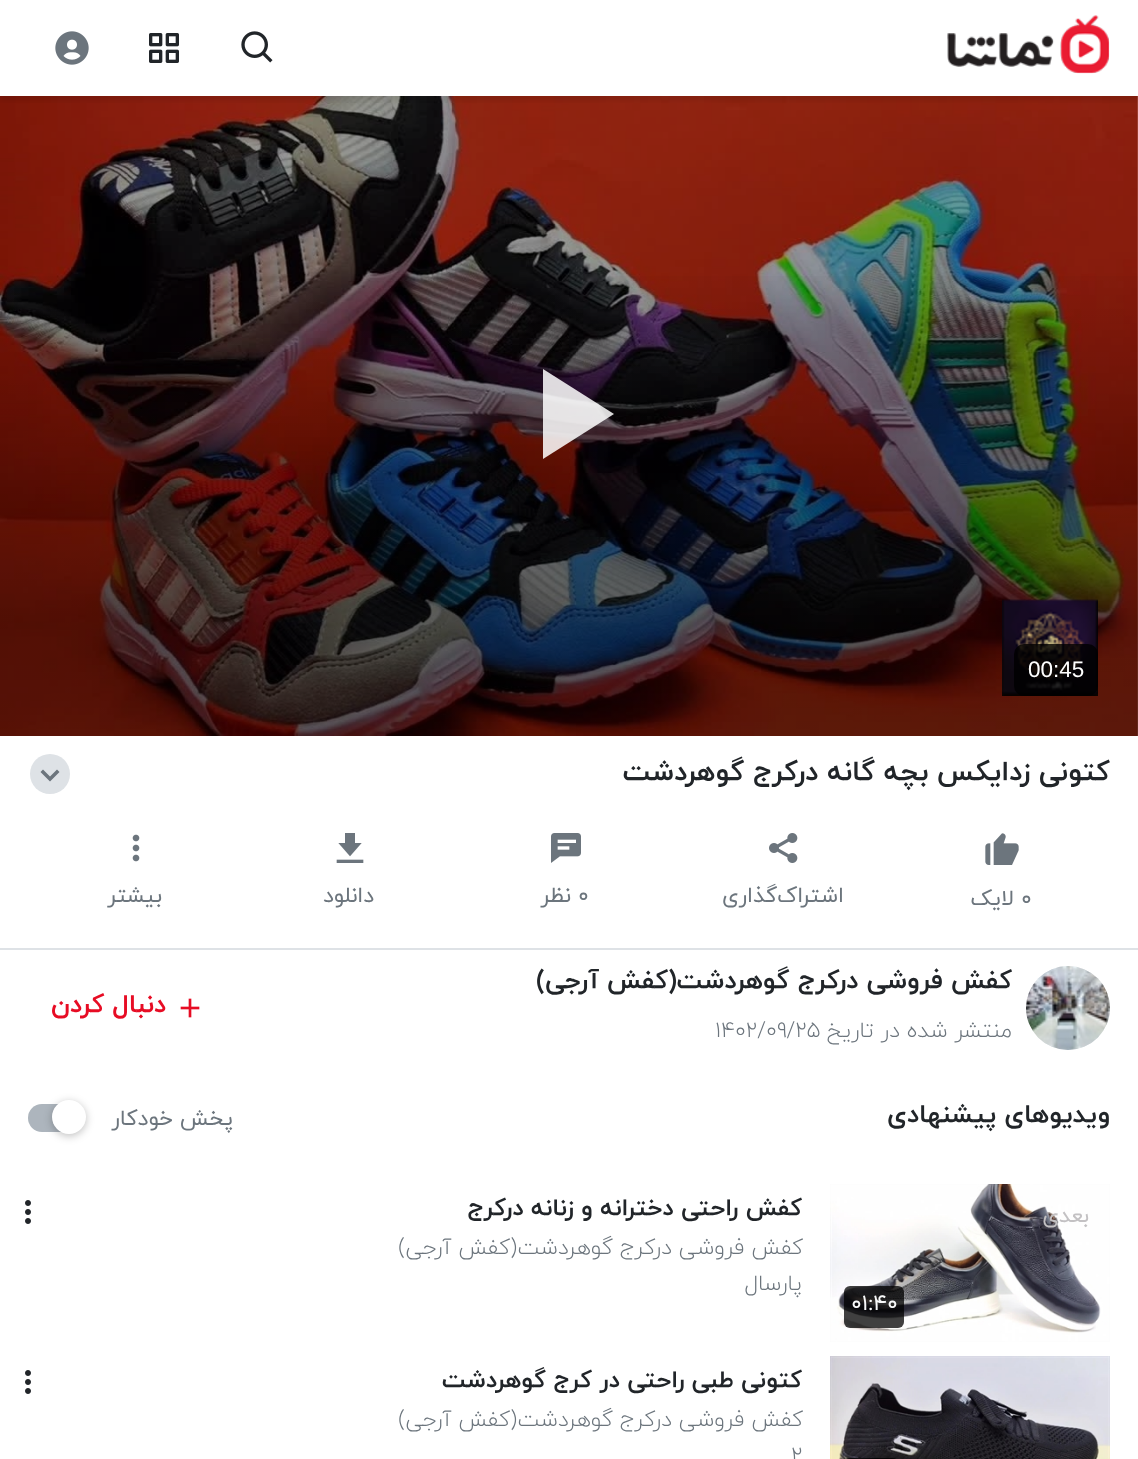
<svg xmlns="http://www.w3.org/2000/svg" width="1138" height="1459">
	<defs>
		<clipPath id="clip1"><rect x="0" y="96" width="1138" height="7" /></clipPath>
		<linearGradient id="g1" gradientUnits="userSpaceOnUse" x1="569" y1="256" x2="569" y2="736"><stop offset="0" stop-color="#000000" stop-opacity="0" /><stop offset="0.77" stop-color="#000000" stop-opacity="0.4" /><stop offset="1" stop-color="#000000" stop-opacity="0.4" /></linearGradient>
	</defs>
	<rect width="100%" height="100%" fill="#FFFFFF" />
	<image x="0" y="96" width="1138" height="640" href="assets/img5.png" />
	<g clip-path="url(#clip1)">
		<rect x="0" y="4" width="1138" height="96" fill="#000000" fill-opacity="0.1" filter="blur(3px)" />
	</g>
	<image x="947" y="15" width="163" height="59" href="assets/img1.png" />
	<image x="241" y="31" width="32" height="32" href="assets/img2.png" />
	<image x="149" y="33" width="30" height="30" href="assets/img3.png" />
	<image x="55" y="31" width="34" height="34" href="assets/img4.png" />
	<rect x="0" y="276" width="1138" height="460" fill="url(#g1)" />
	<path d="M543 369V459L614 414Z" fill="#FFFFFF" fill-opacity="0.85" />
	<image x="1002" y="599" width="96" height="97" href="assets/img6.png" />
	<rect x="1014" y="644" width="84" height="52" rx="10" fill="#000000" fill-opacity="0.8" />
	<text x="1028" y="677" font-family="Liberation Sans" font-size="22.5" fill="#FFFFFF">00:45</text>
	<text x="1110" y="780" font-family="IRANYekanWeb" font-size="28" font-weight="700" direction="rtl" fill="#212529">کتونی زدایکس بچه گانه درکرج گوهردشت</text>
	<circle cx="50" cy="774" r="20" fill="#DEE2E6" />
	<path d="M57 769.5L50 776.5L43 769.5L40.5 772L50 781.5L59.5 772Z" fill="#6C757D" />
	<image x="985" y="833" width="34" height="32" href="assets/img7.png" />
	<text x="1021" y="905" font-family="IRANYekanWeb" font-size="22" fill="#6C757D">۰</text>
	<text x="1014" y="905" font-family="IRANYekanWeb" font-size="22" direction="rtl" fill="#6C757D">لایک</text>
	<image x="769" y="833" width="29" height="30" href="assets/img8.png" />
	<text x="844" y="902" font-family="IRANYekanWeb" font-size="22" direction="rtl" fill="#6C757D">اشتراک‌گذاری</text>
	<image x="551" y="833" width="30" height="30" href="assets/img9.png" />
	<text x="578" y="902" font-family="IRANYekanWeb" font-size="22" fill="#6C757D">۰</text>
	<text x="571" y="902" font-family="IRANYekanWeb" font-size="22" direction="rtl" fill="#6C757D">نظر</text>
	<image x="336" y="833" width="28" height="30" href="assets/img10.png" />
	<text x="374" y="902" font-family="IRANYekanWeb" font-size="22" direction="rtl" fill="#6C757D">دانلود</text>
	<image x="132" y="834" width="8" height="28" href="assets/img11.png" />
	<text x="162" y="902" font-family="IRANYekanWeb" font-size="22" direction="rtl" fill="#6C757D">بیشتر</text>
	<rect x="0" y="948" width="1138" height="2" fill="#DEE2E6" />
	<circle cx="1068" cy="1008" r="42" fill="#E9ECEF" />
	<image x="1026" y="966" width="84" height="84" href="assets/img12.png" />
	<text x="1012" y="988" font-family="IRANYekanWeb" font-size="26" font-weight="700" direction="rtl" fill="#212529">کفش فروشی درکرج گوهردشت(کفش آرجی)</text>
	<text x="1012" y="1037" font-family="IRANYekanWeb" font-size="22" font-weight="300" direction="rtl" fill="#6C757D">منتشر شده در تاریخ</text>
	<text x="715" y="1037" font-family="IRANYekanWeb" font-size="22" font-weight="300" fill="#6C757D">۱۴۰۲/۰۹/۲۵</text>
	<image x="180" y="998" width="20" height="20" href="assets/img13.png" />
	<text x="166" y="1012" font-family="IRANYekanWeb" font-size="26" font-weight="700" direction="rtl" fill="#E70C24">دنبال کردن</text>
	<text x="1110" y="1122" font-family="IRANYekanWeb" font-size="26" font-weight="700" direction="rtl" fill="#212529">ویدیوهای پیشنهادی</text>
	<rect x="28" y="1104" width="56" height="28" rx="14" fill="#ADB5BD" />
	<rect x="52" y="1102" width="34" height="34" rx="17" fill="#000000" fill-opacity="0.25" filter="blur(4px)" />
	<circle cx="69" cy="1117" r="17" fill="#FFFFFF" />
	<text x="233" y="1125" font-family="IRANYekanWeb" font-size="22" direction="rtl" fill="#6C757D">پخش خودکار</text>
	<image x="830" y="1184" width="280" height="158" href="assets/img14.png" />
	<text x="1089" y="1222" font-family="IRANYekanWeb" font-size="22" direction="rtl" fill="#C3C1C3">بعدی</text>
	<rect x="844" y="1286" width="60" height="42" rx="6" fill="#000000" fill-opacity="0.75" />
	<text x="851" y="1310" font-family="IRANYekanWeb" font-size="22" fill="#F8F9FA">۰۱:۴۰</text>
	<text x="802" y="1215" font-family="IRANYekanWeb" font-size="24" font-weight="700" direction="rtl" fill="#212529">کفش راحتی دخترانه و زنانه درکرج</text>
	<image x="25" y="1200" width="6" height="24" href="assets/img15.png" />
	<g font-family="IRANYekanWeb" font-size="22" font-weight="300" direction="rtl" fill="#6C757D">
		<text x="803" y="1254">کفش فروشی درکرج گوهردشت(کفش آرجی)</text>
		<text x="802" y="1290">پارسال</text>
	</g>
	<image x="830" y="1356" width="280" height="103" href="assets/img16.png" />
	<rect x="844" y="1458" width="54" height="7" rx="6" fill="#000000" fill-opacity="0.75" />
	<text x="802" y="1387" font-family="IRANYekanWeb" font-size="24" font-weight="700" direction="rtl" fill="#212529">کتونی طبی راحتی در کرج گوهردشت</text>
	<image x="25" y="1370" width="6" height="24" href="assets/img15.png" />
	<text x="803" y="1426" font-family="IRANYekanWeb" font-size="22" font-weight="300" direction="rtl" fill="#6C757D">کفش فروشی درکرج گوهردشت(کفش آرجی)</text>
	<text x="791" y="1462" font-family="IRANYekanWeb" font-size="22" font-weight="300" fill="#6C757D">۲</text>
</svg>
